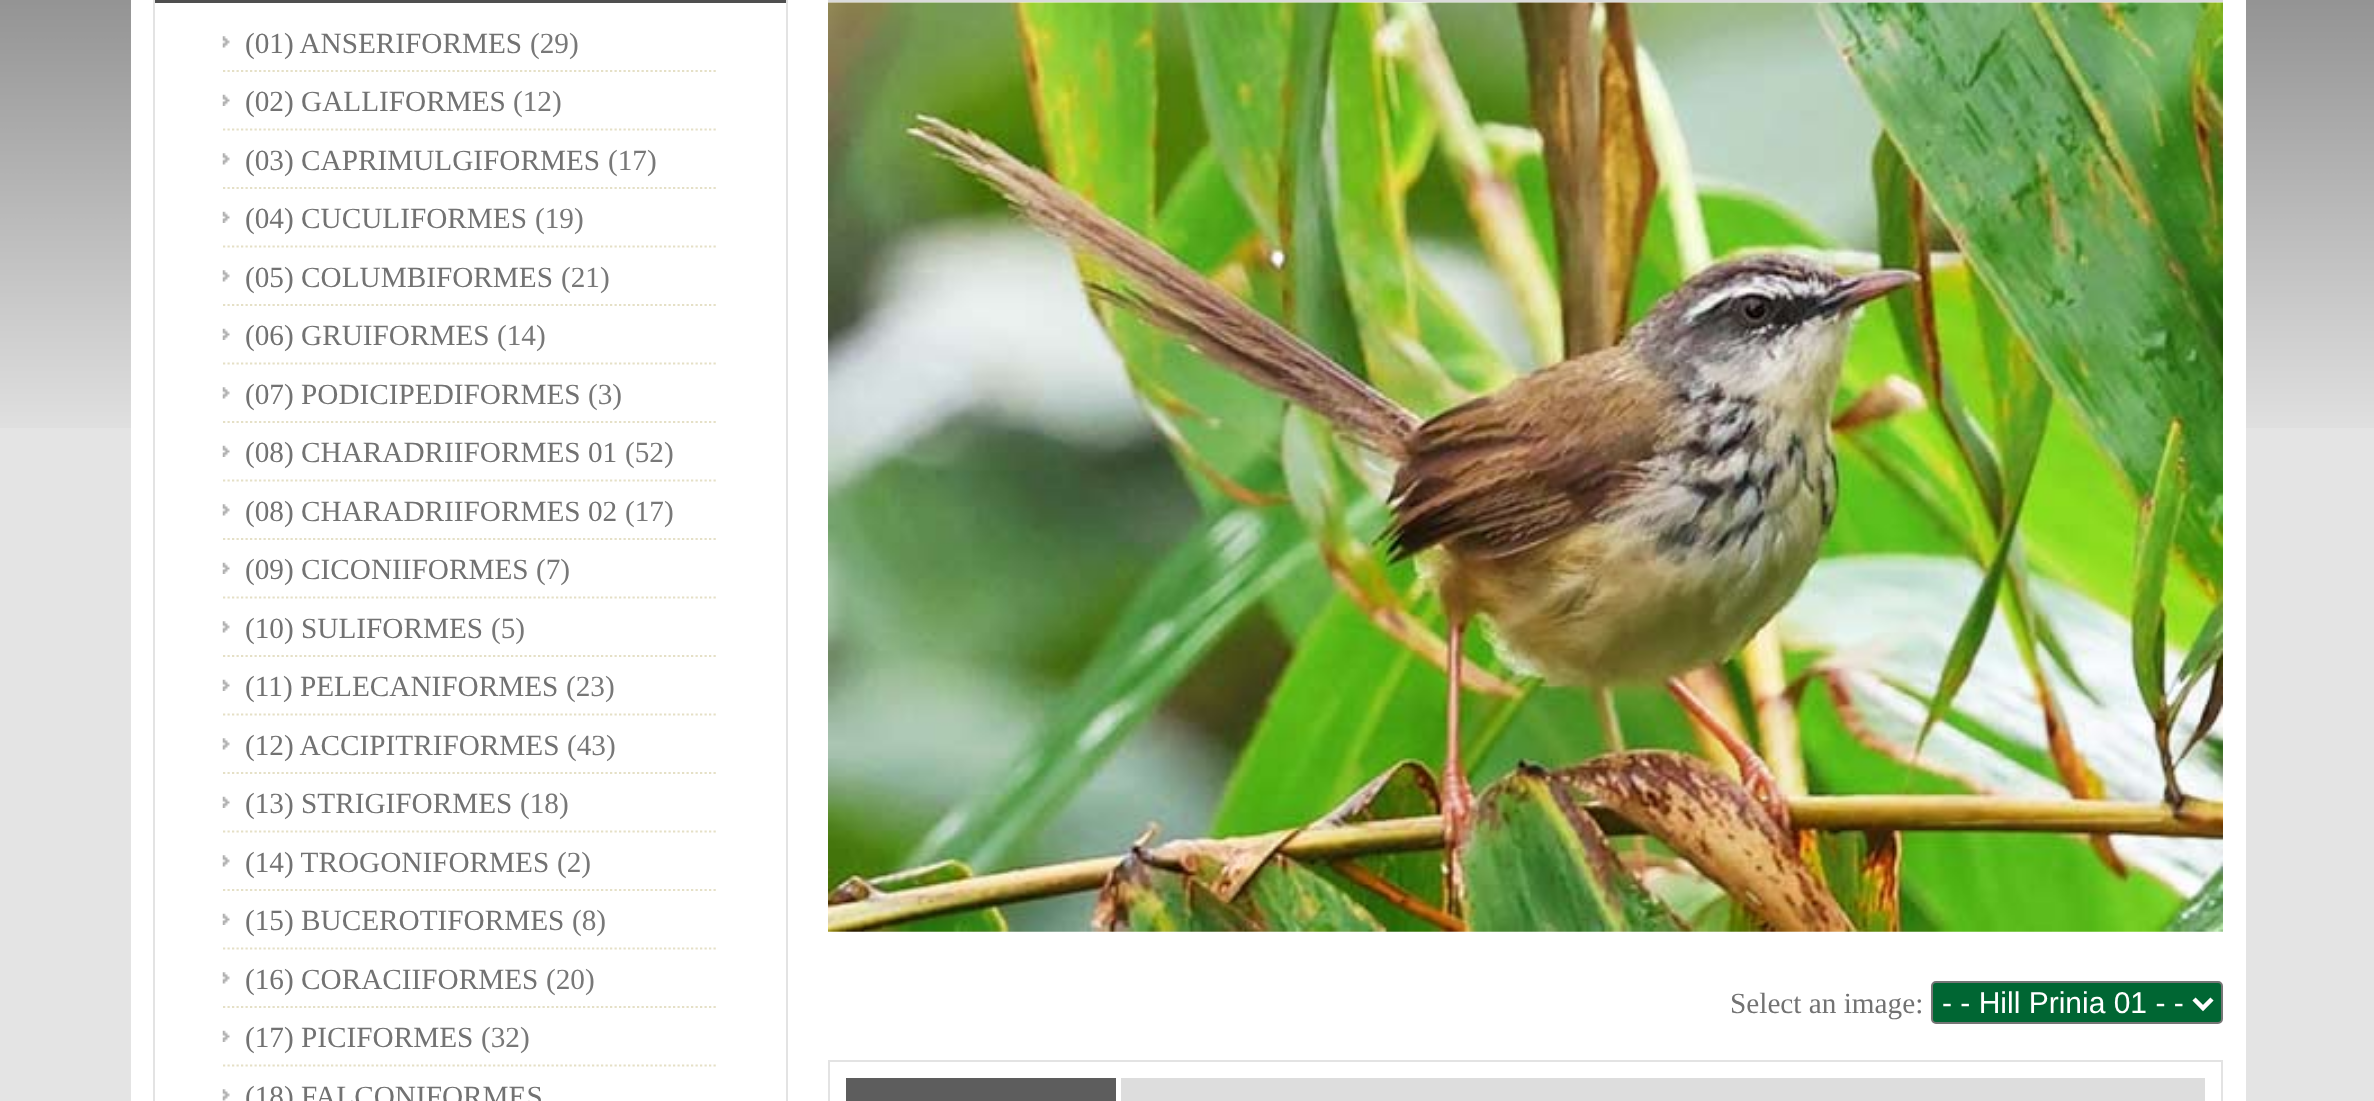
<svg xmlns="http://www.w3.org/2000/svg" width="2374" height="1101">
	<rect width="100%" height="100%" fill="#E4E4E4" />
	<image x="0" y="0" width="2374" height="428" href="assets/img1.png" />
	<rect x="131" y="0" width="2115" height="1101" fill="#FFFFFF" />
	<rect x="154" y="-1" width="633" height="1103" fill="none" stroke="#E3E3E3" stroke-width="2" />
	<rect x="155" y="0" width="631" height="3" fill="#4F4F4F" />
	<path d="M223 71H718" fill="none" stroke="#E5E0C6" stroke-width="2.2" stroke-dasharray="2.25 2.25" />
	<image x="222" y="36" width="8" height="12" href="assets/img2.png" />
	<text x="245" y="53" font-family="Liberation Serif" font-size="29.25" fill="#727272">(01) ANSERIFORMES</text>
	<text x="530" y="53" font-family="Liberation Serif" font-size="29.25" fill="#787878">(29)</text>
	<path d="M223 129.5H718" fill="none" stroke="#E5E0C6" stroke-width="2.2" stroke-dasharray="2.25 2.25" />
	<image x="222" y="94" width="8" height="12" href="assets/img3.png" />
	<text x="245" y="111" font-family="Liberation Serif" font-size="29.25" fill="#727272">(02) GALLIFORMES</text>
	<text x="513" y="111" font-family="Liberation Serif" font-size="29.25" fill="#787878">(12)</text>
	<path d="M223 188H718" fill="none" stroke="#E5E0C6" stroke-width="2.2" stroke-dasharray="2.25 2.25" />
	<image x="222" y="153" width="8" height="12" href="assets/img2.png" />
	<text x="245" y="170" font-family="Liberation Serif" font-size="29.25" fill="#727272">(03) CAPRIMULGIFORMES</text>
	<text x="608" y="170" font-family="Liberation Serif" font-size="29.25" fill="#787878">(17)</text>
	<path d="M223 246.5H718" fill="none" stroke="#E5E0C6" stroke-width="2.2" stroke-dasharray="2.25 2.25" />
	<image x="222" y="211" width="8" height="12" href="assets/img3.png" />
	<text x="245" y="228" font-family="Liberation Serif" font-size="29.25" fill="#727272">(04) CUCULIFORMES</text>
	<text x="535" y="228" font-family="Liberation Serif" font-size="29.25" fill="#787878">(19)</text>
	<path d="M223 305H718" fill="none" stroke="#E5E0C6" stroke-width="2.2" stroke-dasharray="2.25 2.25" />
	<image x="222" y="270" width="8" height="12" href="assets/img2.png" />
	<text x="245" y="287" font-family="Liberation Serif" font-size="29.25" fill="#727272">(05) COLUMBIFORMES</text>
	<text x="561" y="287" font-family="Liberation Serif" font-size="29.25" fill="#787878">(21)</text>
	<path d="M223 363.5H718" fill="none" stroke="#E5E0C6" stroke-width="2.2" stroke-dasharray="2.25 2.25" />
	<image x="222" y="328" width="8" height="12" href="assets/img3.png" />
	<text x="245" y="345" font-family="Liberation Serif" font-size="29.25" fill="#727272">(06) GRUIFORMES</text>
	<text x="497" y="345" font-family="Liberation Serif" font-size="29.25" fill="#787878">(14)</text>
	<path d="M223 422H718" fill="none" stroke="#E5E0C6" stroke-width="2.2" stroke-dasharray="2.25 2.25" />
	<image x="222" y="387" width="8" height="12" href="assets/img2.png" />
	<text x="245" y="404" font-family="Liberation Serif" font-size="29.25" fill="#727272">(07) PODICIPEDIFORMES</text>
	<text x="588" y="404" font-family="Liberation Serif" font-size="29.25" fill="#787878">(3)</text>
	<path d="M223 480.5H718" fill="none" stroke="#E5E0C6" stroke-width="2.2" stroke-dasharray="2.25 2.25" />
	<image x="222" y="445" width="8" height="12" href="assets/img3.png" />
	<text x="245" y="462" font-family="Liberation Serif" font-size="29.25" fill="#727272">(08) CHARADRIIFORMES 01</text>
	<text x="625" y="462" font-family="Liberation Serif" font-size="29.25" fill="#787878">(52)</text>
	<path d="M223 539H718" fill="none" stroke="#E5E0C6" stroke-width="2.2" stroke-dasharray="2.25 2.25" />
	<image x="222" y="504" width="8" height="12" href="assets/img2.png" />
	<text x="245" y="521" font-family="Liberation Serif" font-size="29.25" fill="#727272">(08) CHARADRIIFORMES 02</text>
	<text x="625" y="521" font-family="Liberation Serif" font-size="29.25" fill="#787878">(17)</text>
	<path d="M223 597.5H718" fill="none" stroke="#E5E0C6" stroke-width="2.2" stroke-dasharray="2.25 2.25" />
	<image x="222" y="562" width="8" height="12" href="assets/img3.png" />
	<text x="245" y="579" font-family="Liberation Serif" font-size="29.25" fill="#727272">(09) CICONIIFORMES</text>
	<text x="536" y="579" font-family="Liberation Serif" font-size="29.25" fill="#787878">(7)</text>
	<path d="M223 656H718" fill="none" stroke="#E5E0C6" stroke-width="2.2" stroke-dasharray="2.25 2.25" />
	<image x="222" y="621" width="8" height="12" href="assets/img2.png" />
	<text x="245" y="638" font-family="Liberation Serif" font-size="29.25" fill="#727272">(10) SULIFORMES</text>
	<text x="491" y="638" font-family="Liberation Serif" font-size="29.25" fill="#787878">(5)</text>
	<path d="M223 714.5H718" fill="none" stroke="#E5E0C6" stroke-width="2.2" stroke-dasharray="2.25 2.25" />
	<image x="222" y="679" width="8" height="12" href="assets/img3.png" />
	<text x="245" y="696" font-family="Liberation Serif" font-size="29.25" fill="#727272">(11) PELECANIFORMES</text>
	<text x="566" y="696" font-family="Liberation Serif" font-size="29.25" fill="#787878">(23)</text>
	<path d="M223 773H718" fill="none" stroke="#E5E0C6" stroke-width="2.2" stroke-dasharray="2.25 2.25" />
	<image x="222" y="738" width="8" height="12" href="assets/img2.png" />
	<text x="245" y="755" font-family="Liberation Serif" font-size="29.25" fill="#727272">(12) ACCIPITRIFORMES</text>
	<text x="567" y="755" font-family="Liberation Serif" font-size="29.25" fill="#787878">(43)</text>
	<path d="M223 831.5H718" fill="none" stroke="#E5E0C6" stroke-width="2.2" stroke-dasharray="2.25 2.25" />
	<image x="222" y="796" width="8" height="12" href="assets/img3.png" />
	<text x="245" y="813" font-family="Liberation Serif" font-size="29.25" fill="#727272">(13) STRIGIFORMES</text>
	<text x="520" y="813" font-family="Liberation Serif" font-size="29.25" fill="#787878">(18)</text>
	<path d="M223 890H718" fill="none" stroke="#E5E0C6" stroke-width="2.2" stroke-dasharray="2.25 2.25" />
	<image x="222" y="855" width="8" height="12" href="assets/img2.png" />
	<text x="245" y="872" font-family="Liberation Serif" font-size="29.25" fill="#727272">(14) TROGONIFORMES</text>
	<text x="557" y="872" font-family="Liberation Serif" font-size="29.25" fill="#787878">(2)</text>
	<path d="M223 948.5H718" fill="none" stroke="#E5E0C6" stroke-width="2.2" stroke-dasharray="2.25 2.25" />
	<image x="222" y="913" width="8" height="12" href="assets/img3.png" />
	<text x="245" y="930" font-family="Liberation Serif" font-size="29.25" fill="#727272">(15) BUCEROTIFORMES</text>
	<text x="572" y="930" font-family="Liberation Serif" font-size="29.25" fill="#787878">(8)</text>
	<path d="M223 1007H718" fill="none" stroke="#E5E0C6" stroke-width="2.2" stroke-dasharray="2.25 2.25" />
	<image x="222" y="972" width="8" height="12" href="assets/img2.png" />
	<text x="245" y="989" font-family="Liberation Serif" font-size="29.25" fill="#727272">(16) CORACIIFORMES</text>
	<text x="546" y="989" font-family="Liberation Serif" font-size="29.25" fill="#787878">(20)</text>
	<path d="M223 1065.5H718" fill="none" stroke="#E5E0C6" stroke-width="2.2" stroke-dasharray="2.25 2.25" />
	<image x="222" y="1030" width="8" height="12" href="assets/img3.png" />
	<text x="245" y="1047" font-family="Liberation Serif" font-size="29.25" fill="#727272">(17) PICIFORMES</text>
	<text x="481" y="1047" font-family="Liberation Serif" font-size="29.25" fill="#787878">(32)</text>
	<image x="222" y="1089" width="8" height="12" href="assets/img4.png" />
	<text x="245" y="1106" font-family="Liberation Serif" font-size="29.25" fill="#727272">(18) FALCONIFORMES</text>
	<rect x="828" y="0" width="1395" height="2" fill="#DBDBDB" />
	<image x="828" y="2" width="1395" height="930" href="assets/img5.png" />
	<text x="1730" y="1013" font-family="Liberation Serif" font-size="29.25" fill="#727272">Select an image:</text>
	<rect x="1932" y="982" width="290" height="41" rx="4" fill="#006633" stroke="#767676" stroke-width="2" />
	<path d="M2194 999L2203 1008L2212 999" fill="none" stroke="#FFFFFF" stroke-width="4.5" />
	<text x="1942" y="1013" font-family="Liberation Sans" font-size="30" fill="#FFFFFF">- - Hill Prinia 01 - -</text>
	<rect x="829" y="1061" width="1393" height="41" fill="none" stroke="#E3E3E3" stroke-width="2" />
	<rect x="846" y="1078" width="270" height="23" fill="#5D5D5D" />
	<rect x="1121" y="1078" width="1084" height="23" fill="#DDDDDD" />
</svg>
